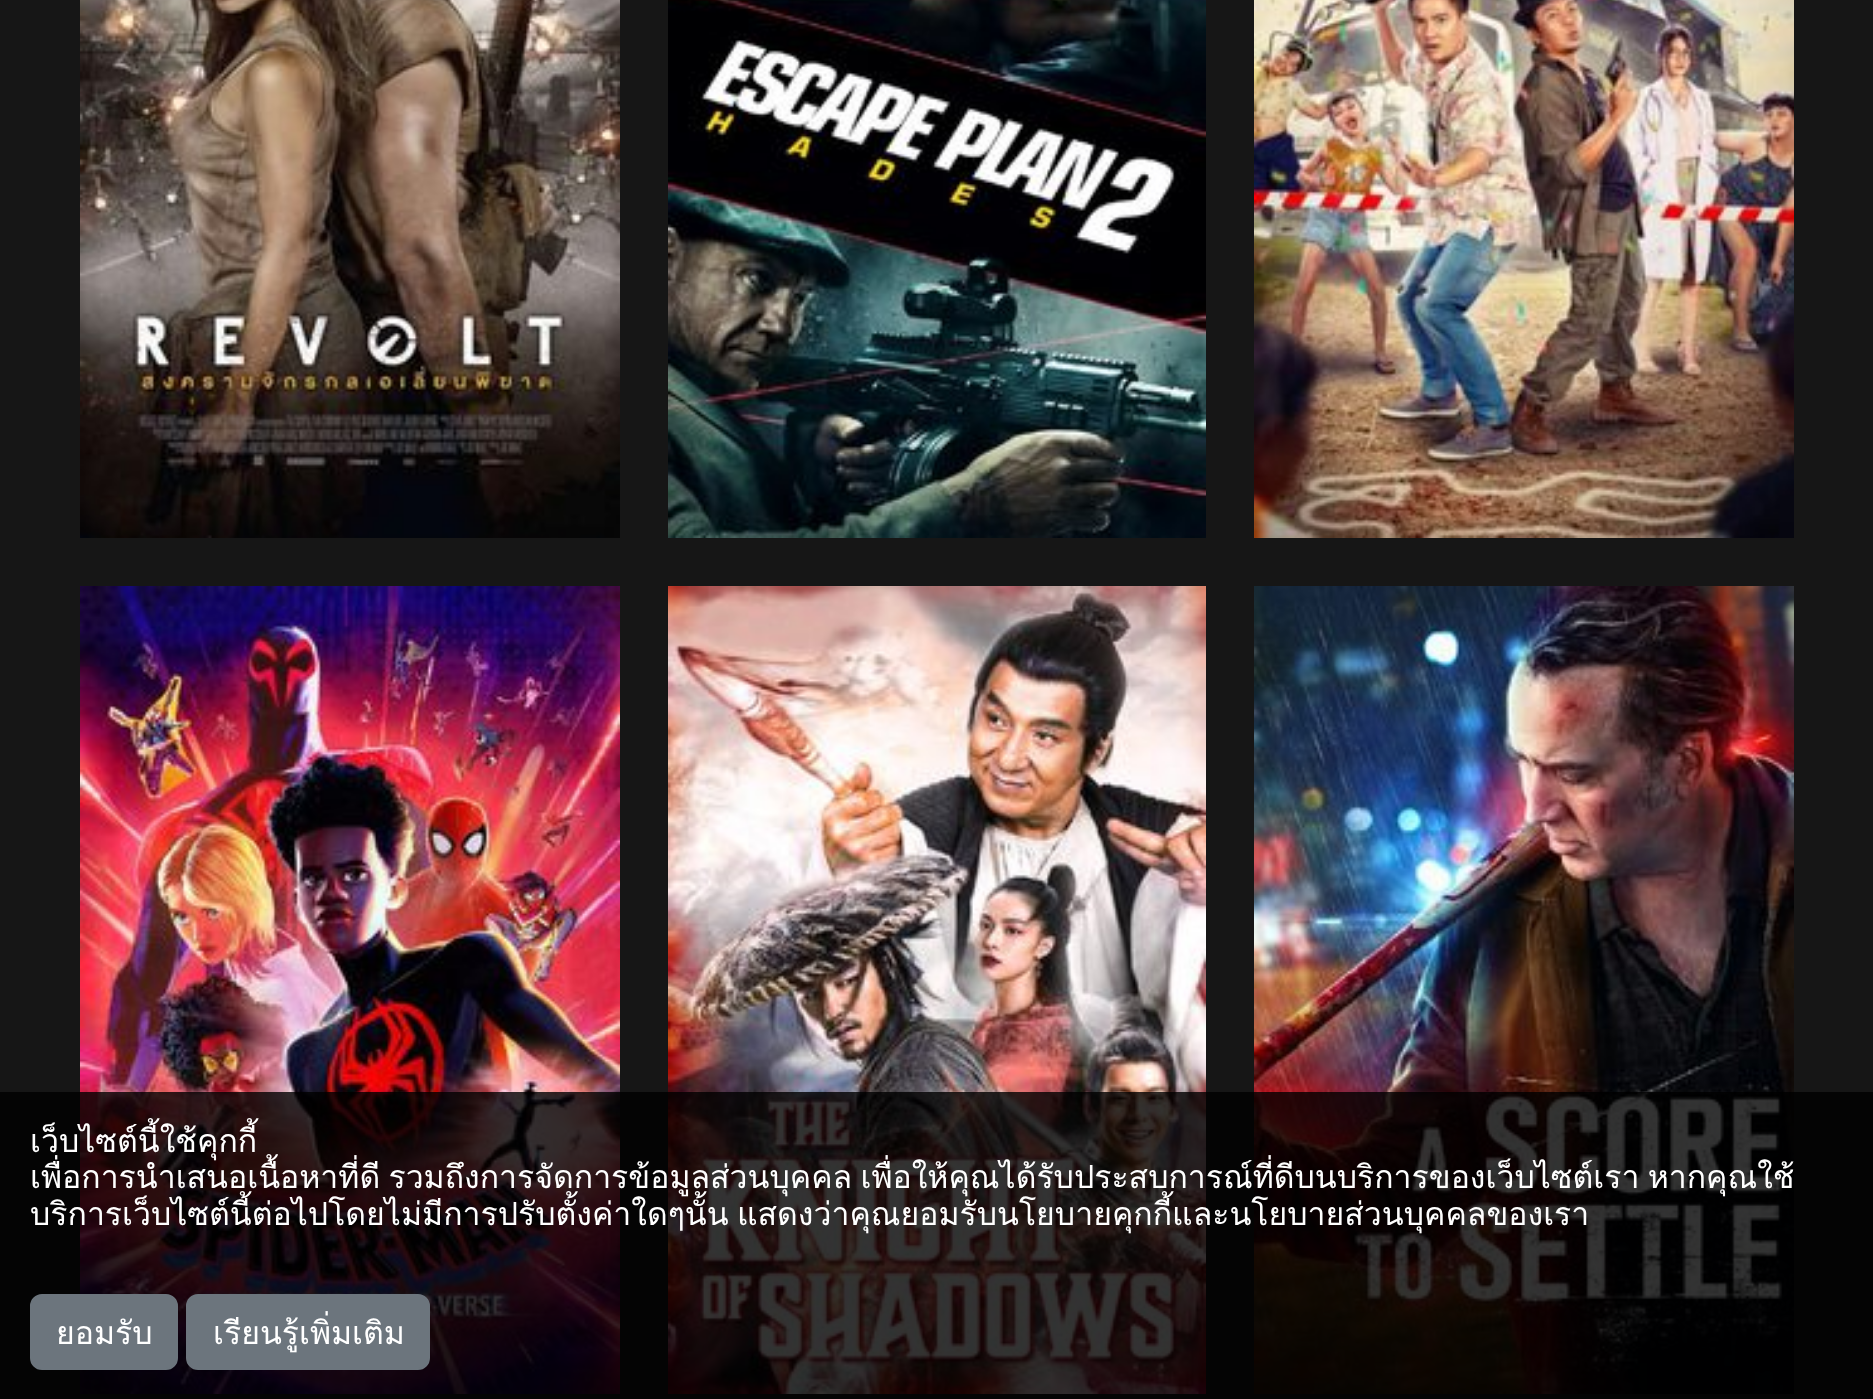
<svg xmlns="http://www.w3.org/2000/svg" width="1873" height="1399">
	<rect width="100%" height="100%" fill="#161616" />
	<image x="80" y="0" width="540" height="538" href="assets/img1.png" />
	<image x="668" y="0" width="538" height="538" href="assets/img2.png" />
	<image x="1254" y="0" width="540" height="538" href="assets/img3.png" />
	<image x="80" y="586" width="540" height="808" href="assets/img4.png" />
	<image x="668" y="586" width="538" height="808" href="assets/img5.png" />
	<image x="1254" y="586" width="540" height="808" href="assets/img6.png" />
	<rect x="0" y="1092" width="1873" height="307" fill="#000000" fill-opacity="0.8" />
	<g font-family="Loma" font-size="32" fill="#FFFFFF">
		<text x="30" y="1152">เว็บไซต์นี้ใช้คุกกี้</text>
		<text x="30" y="1188" word-spacing="-2.5">เพื่อการนำเสนอเนื้อหาที่ดี รวมถึงการจัดการข้อมูลส่วนบุคคล เพื่อให้คุณได้รับประสบการณ์ที่ดีบนบริการของเว็บไซต์เรา หากคุณใช้</text>
		<text x="30" y="1225" word-spacing="-2.5">บริการเว็บไซต์นี้ต่อไปโดยไม่มีการปรับตั้งค่าใดๆนั้น แสดงว่าคุณยอมรับนโยบายคุกกี้และนโยบายส่วนบุคคลของเรา</text>
	</g>
	<rect x="31" y="1295" width="146" height="74" rx="11" fill="#6C757D" stroke="#6C757D" stroke-width="2" />
	<text x="56" y="1344" font-family="Loma" font-size="32" fill="#FFFFFF">ยอมรับ</text>
	<rect x="187" y="1295" width="242" height="74" rx="11" fill="#6C757D" stroke="#6C757D" stroke-width="2" />
	<text x="213" y="1344" font-family="Loma" font-size="32" fill="#FFFFFF">เรียนรู้เพิ่มเติม</text>
</svg>
